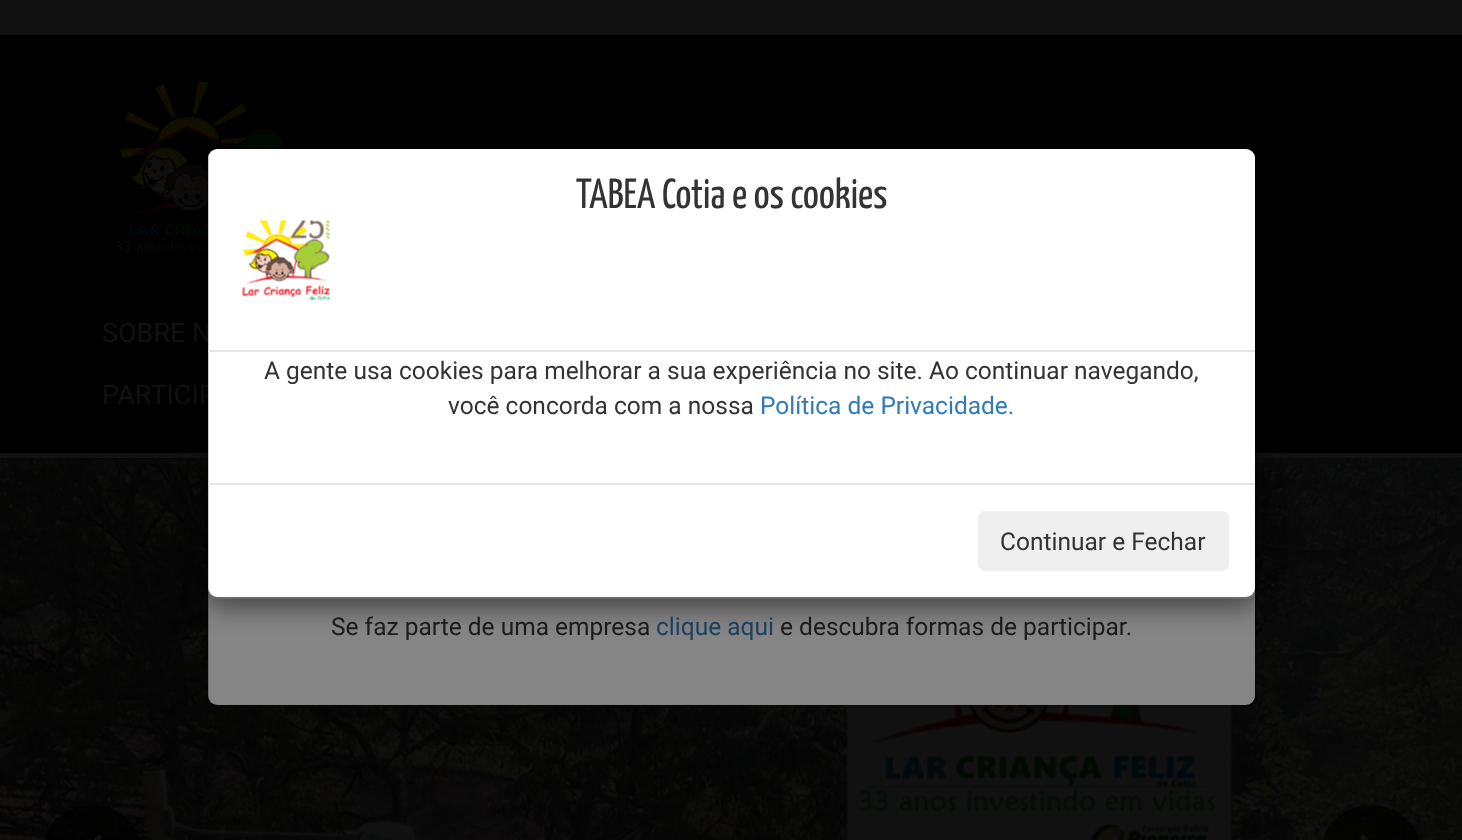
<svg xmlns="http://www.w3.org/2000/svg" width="1462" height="840">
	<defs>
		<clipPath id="clip1"><path d="M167 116H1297V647H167ZM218 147H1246C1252 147 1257 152 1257 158V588C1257 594 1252 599 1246 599H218C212 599 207 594 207 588V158C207 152 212 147 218 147Z" clip-rule="evenodd" /></clipPath>
	</defs>
	<rect width="100%" height="100%" fill="#111111" />
	<rect x="0" y="35" width="1462" height="424" fill="#000000" />
	<rect x="0" y="453" width="1462" height="5" fill="#111111" />
	<image x="116" y="81" width="167" height="171" href="assets/img1.png" />
	<g font-family="Roboto" font-size="27" fill="#111111">
		<text x="102" y="342">SOBRE N</text>
		<text x="102" y="404">PARTICIP</text>
	</g>
	<image x="0" y="458" width="1462" height="382" href="assets/img3.png" />
	<rect x="208" y="149" width="1047" height="556" rx="9" fill="#858585" />
	<rect x="208" y="148" width="1048" height="558" rx="10" fill="none" stroke="#000000" stroke-opacity="0.2" stroke-width="2" />
	<g clip-path="url(#clip1)">
		<rect x="207" y="156" width="1050" height="451" rx="11" fill="#000000" fill-opacity="0.5" filter="blur(13px)" />
	</g>
	<rect x="208" y="149" width="1047" height="448" rx="9" fill="#FFFFFF" />
	<rect x="208" y="148" width="1048" height="450" rx="10" fill="none" stroke="#000000" stroke-opacity="0.2" stroke-width="2" />
	<rect x="208" y="350" width="1047" height="2" fill="#E5E5E5" />
	<text x="576" y="208" font-family="Yanone Kaffeesatz" font-size="42" fill="#333333">TABEA Cotia e os cookies</text>
	<image x="242" y="220" width="88" height="81" href="assets/img2.png" />
	<g font-family="Roboto" font-size="24.5" fill="#333333">
		<text x="264" y="379">A gente usa cookies para melhorar a sua experiência no site. Ao continuar navegando,</text>
		<text x="448" y="414">você concorda com a nossa</text>
	</g>
	<text x="760" y="414" font-family="Roboto" font-size="24.5" fill="#337AB7">Política de Privacidade.</text>
	<rect x="208" y="483" width="1047" height="2" fill="#E5E5E5" />
	<rect x="978" y="511" width="251" height="60" rx="7" fill="#EFEFEF" />
	<text x="1000" y="550" font-family="Roboto" font-size="24.5" fill="#333333">Continuar e Fechar</text>
	<rect x="44" y="805" width="96" height="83" rx="48" fill="#000000" fill-opacity="0.65" />
	<image x="93" y="834" width="9" height="6" href="assets/img4.png" />
	<rect x="1323" y="805" width="96" height="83" rx="48" fill="#000000" fill-opacity="0.65" />
	<image x="1360" y="834" width="9" height="6" href="assets/img5.png" />
	<text x="331" y="635" font-family="Roboto" font-size="24.5" fill="#1B1B1B">Se faz parte de uma empresa</text>
	<text x="656" y="635" font-family="Roboto" font-size="24.5" fill="#1B3F5F">clique aqui</text>
	<text x="780" y="635" font-family="Roboto" font-size="24.5" fill="#1B1B1B">e descubra formas de participar.</text>
</svg>
